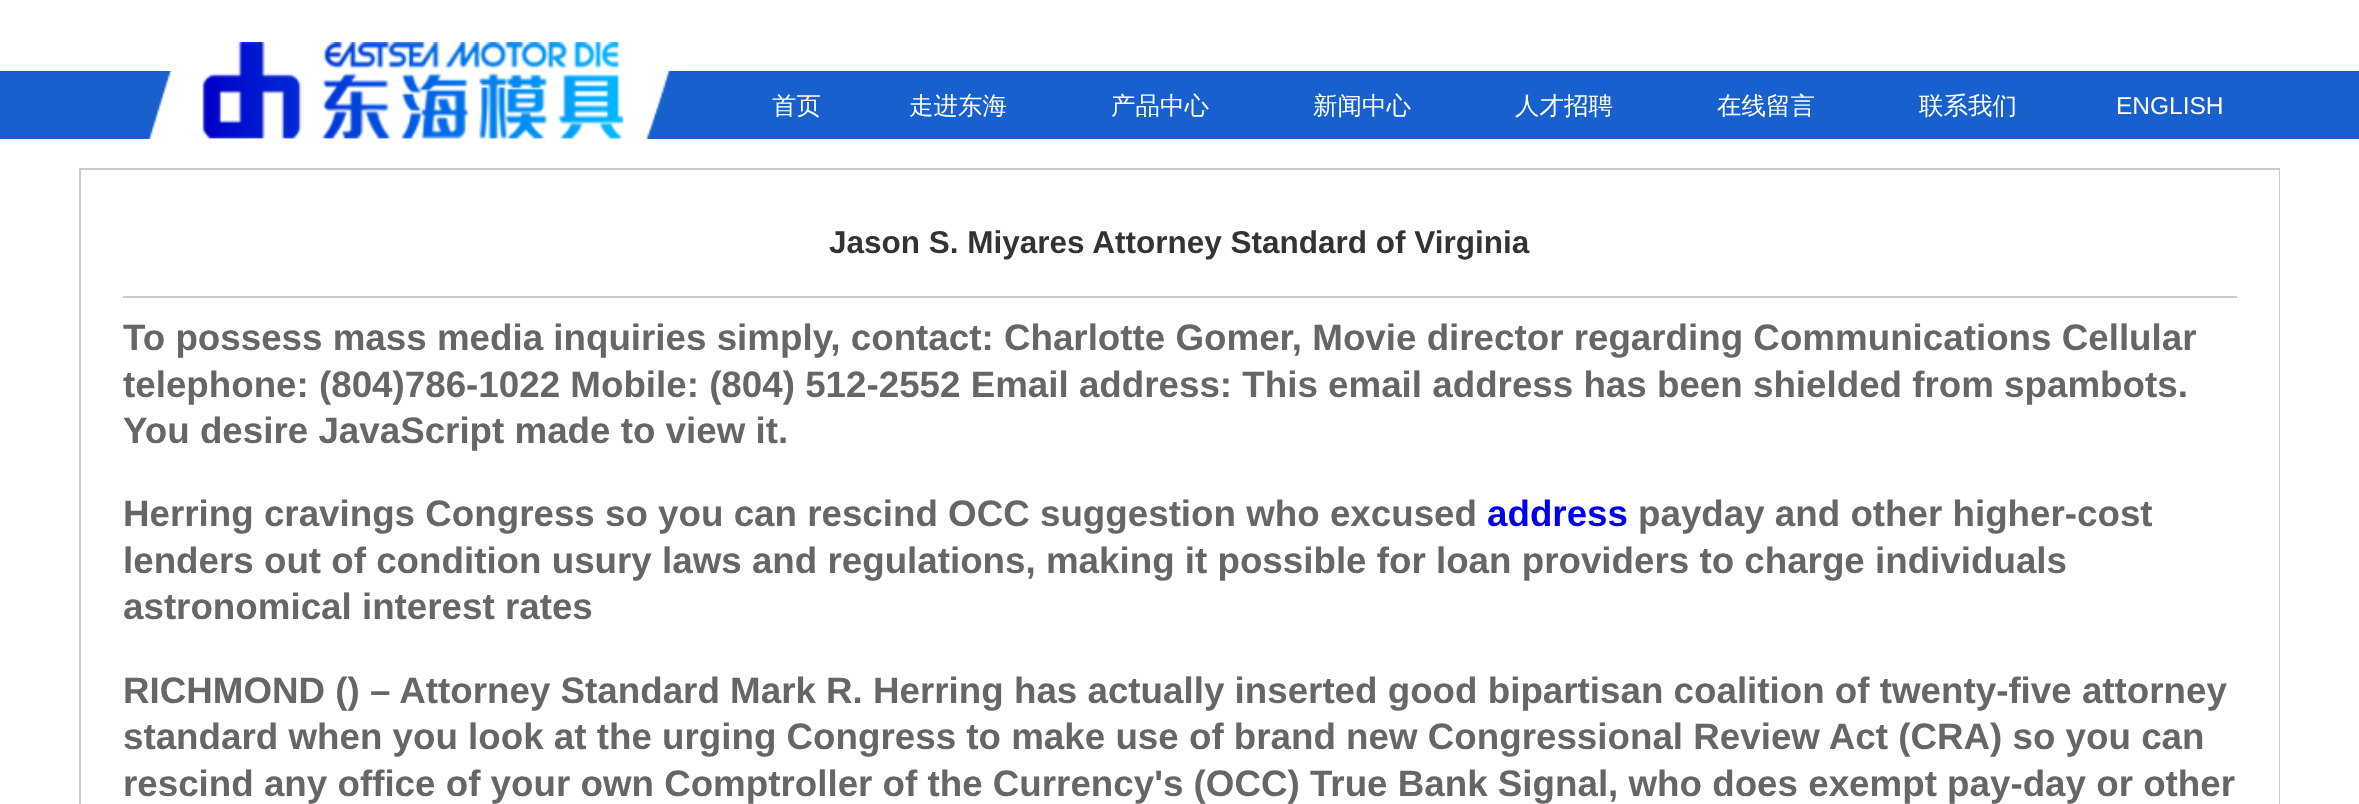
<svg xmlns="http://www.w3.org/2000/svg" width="2359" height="804">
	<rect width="100%" height="100%" fill="#FFFFFF" />
	<rect x="0" y="71" width="2359" height="68" fill="#1760CD" />
	<image x="148" y="42" width="523" height="97" href="assets/img1.png" />
	<g font-family="WenQuanYi Zen Hei" font-size="24.5" font-weight="500" fill="#FFFFFF">
		<text x="772" y="114">首页</text>
		<text x="909" y="114">走进东海</text>
		<text x="1111" y="114">产品中心</text>
		<text x="1313" y="114">新闻中心</text>
		<text x="1515" y="114">人才招聘</text>
		<text x="1717" y="114">在线留言</text>
		<text x="1919" y="114">联系我们</text>
	</g>
	<text x="2116" y="114" font-family="Liberation Sans" font-size="24.5" fill="#FFFFFF">ENGLISH</text>
	<rect x="79" y="168" width="2201" height="636" fill="#CCCCCC" />
	<rect x="81" y="170" width="2198" height="634" fill="#FFFFFF" />
	<text x="829" y="253" font-family="Liberation Sans" font-size="31.5" font-weight="700" fill="#333333">Jason S. Miyares Attorney Standard of Virginia</text>
	<rect x="123" y="296" width="2114" height="2" fill="#CCCCCC" />
	<g font-family="Liberation Sans" font-size="36.75" font-weight="700" fill="#666666">
		<text x="123" y="350">To possess mass media inquiries simply, contact: Charlotte Gomer, Movie director regarding Communications Cellular</text>
		<text x="123" y="397">telephone: (804)786-1022 Mobile: (804) 512-2552 Email address: This email address has been shielded from spambots.</text>
		<text x="123" y="443">You desire JavaScript made to view it.</text>
		<text x="123" y="526">Herring cravings Congress so you can rescind OCC suggestion who excused</text>
	</g>
	<text x="1487" y="526" font-family="Liberation Sans" font-size="36.75" font-weight="700" fill="#0000EE">address</text>
	<g font-family="Liberation Sans" font-size="36.75" font-weight="700" fill="#666666">
		<text x="1638" y="526">payday and other higher-cost</text>
		<text x="123" y="573">lenders out of condition usury laws and regulations, making it possible for loan providers to charge individuals</text>
		<text x="123" y="619">astronomical interest rates</text>
		<text x="123" y="703">RICHMOND () – Attorney Standard Mark R. Herring has actually inserted good bipartisan coalition of twenty-five attorney</text>
		<text x="123" y="749">standard when you look at the urging Congress to make use of brand new Congressional Review Act (CRA) so you can</text>
		<text x="123" y="796">rescind any office of your own Comptroller of the Currency's (OCC) True Bank Signal, who does exempt pay-day or other</text>
	</g>
</svg>
